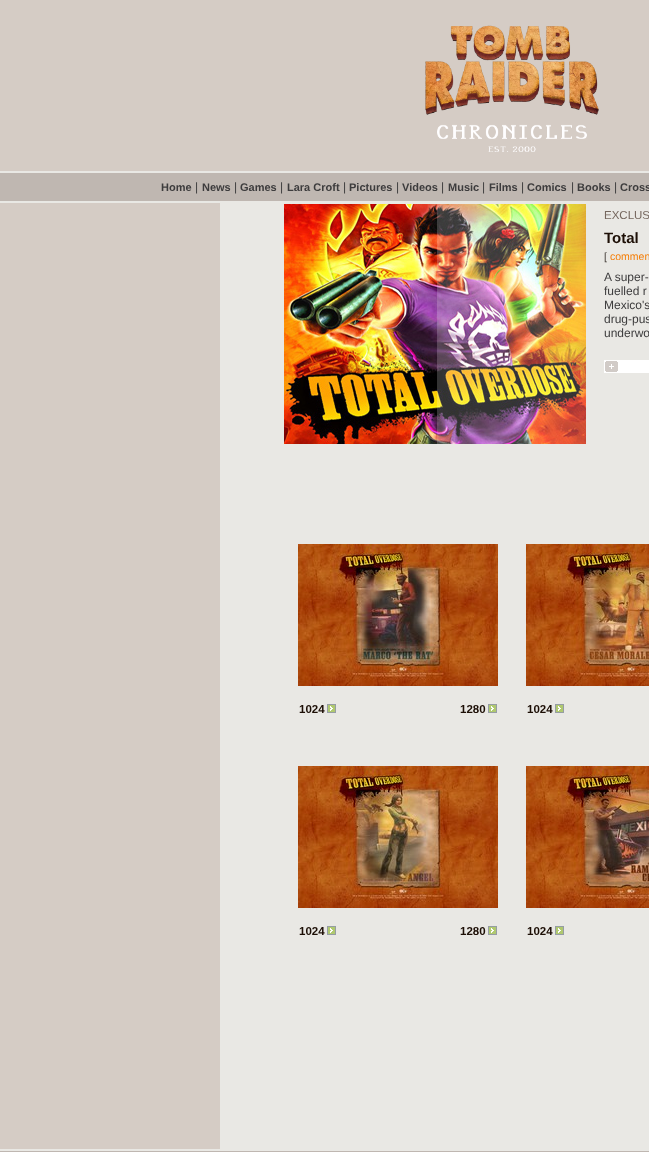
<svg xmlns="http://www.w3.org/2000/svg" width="649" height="1152">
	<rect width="100%" height="100%" fill="#D5CCC5" />
	<image x="425" y="25" width="174" height="127" href="assets/img1.png" />
	<rect x="0" y="171" width="649" height="2" fill="#E9E8E4" />
	<rect x="0" y="173" width="649" height="28" fill="#BFB7B1" />
	<text x="161" y="191" font-family="Liberation Sans" font-size="11" font-weight="700" fill="#3D3C3D">Home</text>
	<text x="195" y="191" font-family="Liberation Sans" font-size="12" fill="#3D3C3D">|</text>
	<text x="202" y="191" font-family="Liberation Sans" font-size="11" font-weight="700" fill="#3D3C3D">News</text>
	<text x="234" y="191" font-family="Liberation Sans" font-size="12" fill="#3D3C3D">|</text>
	<text x="240" y="191" font-family="Liberation Sans" font-size="11" font-weight="700" fill="#3D3C3D">Games</text>
	<text x="280" y="191" font-family="Liberation Sans" font-size="12" fill="#3D3C3D">|</text>
	<text x="287" y="191" font-family="Liberation Sans" font-size="11" font-weight="700" fill="#3D3C3D">Lara Croft</text>
	<text x="343" y="191" font-family="Liberation Sans" font-size="12" fill="#3D3C3D">|</text>
	<text x="349" y="191" font-family="Liberation Sans" font-size="11" font-weight="700" fill="#3D3C3D">Pictures</text>
	<text x="396" y="191" font-family="Liberation Sans" font-size="12" fill="#3D3C3D">|</text>
	<text x="402" y="191" font-family="Liberation Sans" font-size="11" font-weight="700" fill="#3D3C3D">Videos</text>
	<text x="441" y="191" font-family="Liberation Sans" font-size="12" fill="#3D3C3D">|</text>
	<text x="448" y="191" font-family="Liberation Sans" font-size="11" font-weight="700" fill="#3D3C3D">Music</text>
	<text x="482" y="191" font-family="Liberation Sans" font-size="12" fill="#3D3C3D">|</text>
	<text x="489" y="191" font-family="Liberation Sans" font-size="11" font-weight="700" fill="#3D3C3D">Films</text>
	<text x="521" y="191" font-family="Liberation Sans" font-size="12" fill="#3D3C3D">|</text>
	<text x="527" y="191" font-family="Liberation Sans" font-size="11" font-weight="700" fill="#3D3C3D">Comics</text>
	<text x="571" y="191" font-family="Liberation Sans" font-size="12" fill="#3D3C3D">|</text>
	<text x="577" y="191" font-family="Liberation Sans" font-size="11" font-weight="700" fill="#3D3C3D">Books</text>
	<text x="614" y="191" font-family="Liberation Sans" font-size="12" fill="#3D3C3D">|</text>
	<text x="620" y="191" font-family="Liberation Sans" font-size="11" font-weight="700" fill="#3D3C3D">Cross</text>
	<rect x="0" y="201" width="649" height="2" fill="#E9E8E4" />
	<rect x="220" y="203" width="429" height="946" fill="#E9E8E4" />
	<image x="284" y="204" width="302" height="240" href="assets/img2.png" />
	<text x="604" y="219" font-family="Liberation Sans" font-size="11.5" fill="#75675E">EXCLUS</text>
	<text x="604" y="243" font-family="Liberation Sans" font-size="15" font-weight="700" fill="#1D0F06">Total</text>
	<text x="604" y="260" font-family="Liberation Sans" font-size="10.5" fill="#3F3732">[</text>
	<text x="610" y="260" font-family="Liberation Sans" font-size="10.5" fill="#F57D05">commen</text>
	<g font-family="Liberation Sans" font-size="12" fill="#3D3C3D">
		<text x="604" y="281">A super-</text>
		<text x="604" y="295">fuelled r</text>
		<text x="604" y="309">Mexico's</text>
		<text x="604" y="323">drug-pus</text>
		<text x="604" y="337">underwo</text>
	</g>
	<image x="604" y="360" width="45" height="13" href="assets/img3.png" />
	<image x="298" y="544" width="200" height="142" href="assets/img4.png" />
	<image x="526" y="544" width="123" height="142" href="assets/img5.png" />
	<text x="299" y="713" font-family="Liberation Sans" font-size="11.5" font-weight="700" fill="#1D0F06">1024</text>
	<image x="327" y="704" width="9" height="9" href="assets/img6.png" />
	<text x="460" y="713" font-family="Liberation Sans" font-size="11.5" font-weight="700" fill="#1D0F06">1280</text>
	<image x="488" y="704" width="9" height="9" href="assets/img6.png" />
	<text x="527" y="713" font-family="Liberation Sans" font-size="11.5" font-weight="700" fill="#1D0F06">1024</text>
	<image x="555" y="704" width="9" height="9" href="assets/img6.png" />
	<image x="298" y="766" width="200" height="142" href="assets/img7.png" />
	<image x="526" y="766" width="123" height="142" href="assets/img8.png" />
	<text x="299" y="935" font-family="Liberation Sans" font-size="11.5" font-weight="700" fill="#1D0F06">1024</text>
	<image x="327" y="926" width="9" height="9" href="assets/img6.png" />
	<text x="460" y="935" font-family="Liberation Sans" font-size="11.5" font-weight="700" fill="#1D0F06">1280</text>
	<image x="488" y="926" width="9" height="9" href="assets/img6.png" />
	<text x="527" y="935" font-family="Liberation Sans" font-size="11.5" font-weight="700" fill="#1D0F06">1024</text>
	<image x="555" y="926" width="9" height="9" href="assets/img6.png" />
	<rect x="0" y="1149" width="649" height="2" fill="#E9E8E4" />
	<rect x="0" y="1151" width="649" height="1" fill="#BFB7B1" />
</svg>
